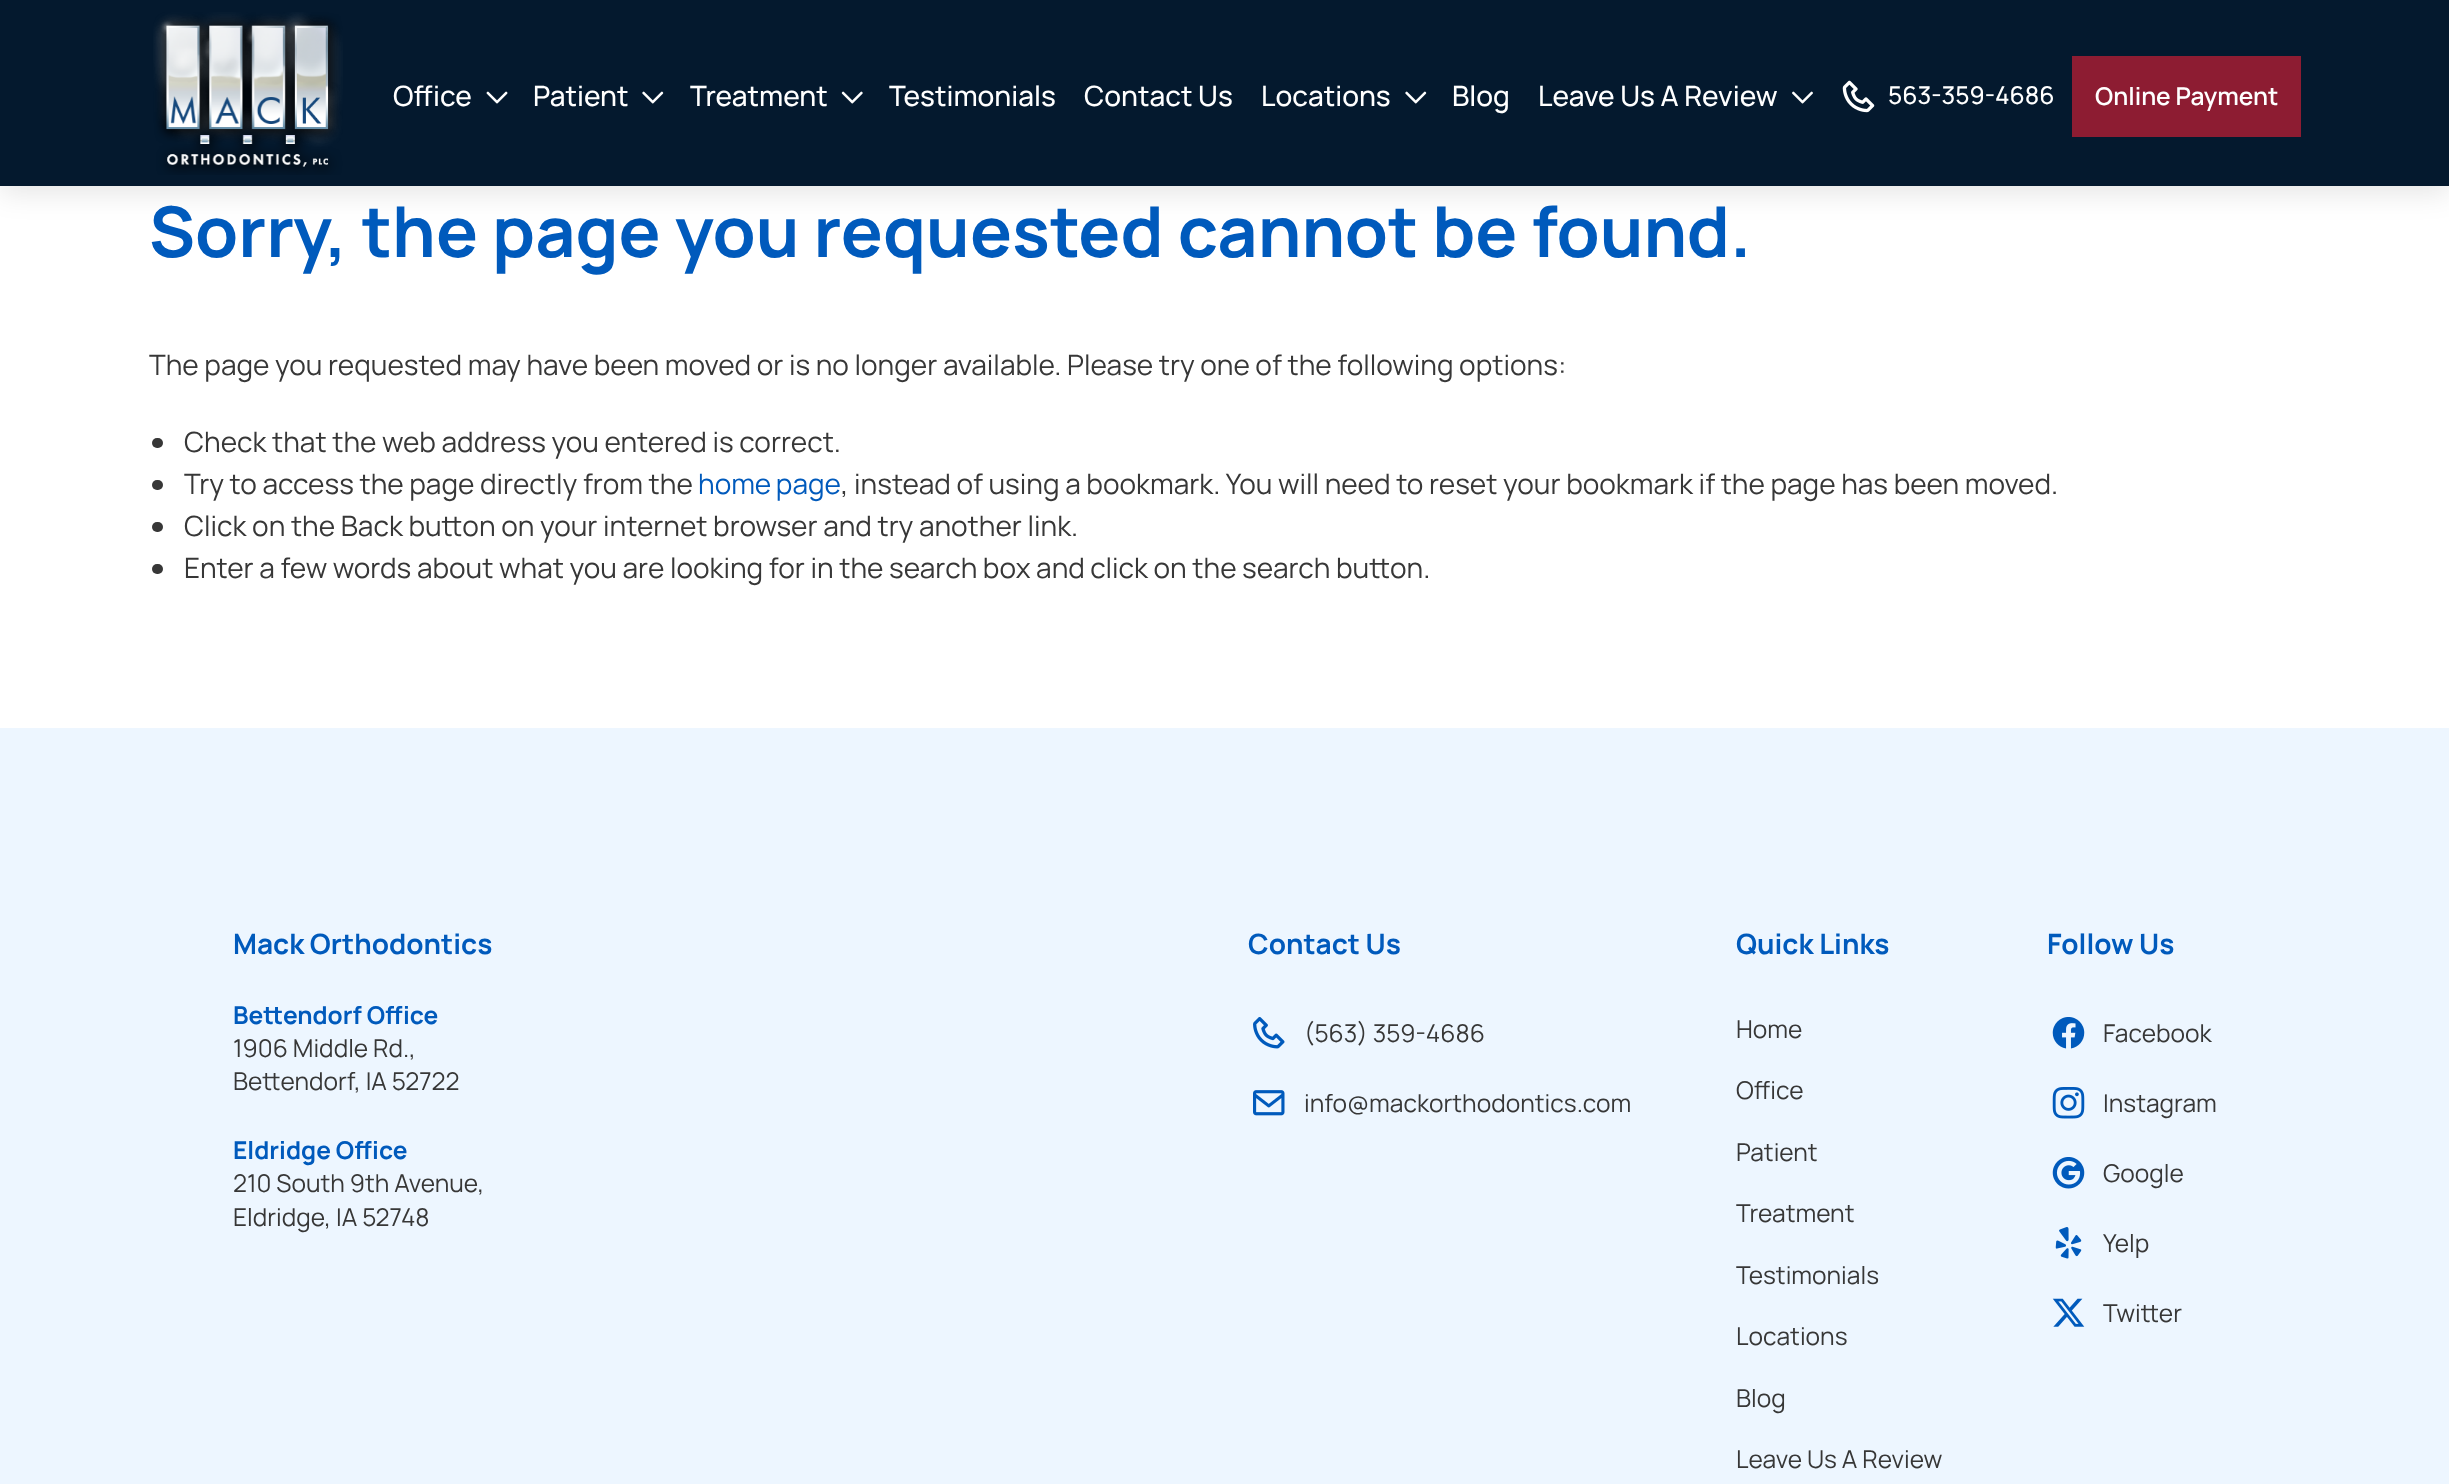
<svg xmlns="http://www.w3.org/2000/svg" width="2449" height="1484">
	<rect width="100%" height="100%" fill="#FFFFFF" />
	<rect x="0" y="7" width="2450" height="186" fill="#000000" fill-opacity="0.1" filter="blur(14px)" />
	<rect x="0" y="0" width="2449" height="186" fill="#04192E" />
	<image x="153" y="12" width="190" height="163" href="assets/img1.png" />
	<text x="393" y="106" font-family="Manrope" font-size="28" font-weight="500" fill="#FFFFFF">Office</text>
	<image x="486" y="91" width="22" height="13" href="assets/img2.png" />
	<text x="533" y="106" font-family="Manrope" font-size="28" font-weight="500" fill="#FFFFFF">Patient</text>
	<image x="642" y="91" width="22" height="13" href="assets/img3.png" />
	<text x="690" y="106" font-family="Manrope" font-size="28" font-weight="500" fill="#FFFFFF">Treatment</text>
	<image x="841" y="91" width="22" height="13" href="assets/img4.png" />
	<g font-family="Manrope" font-size="28" font-weight="500" fill="#FFFFFF">
		<text x="889" y="106">Testimonials</text>
		<text x="1084" y="106">Contact Us</text>
		<text x="1261" y="106">Locations</text>
	</g>
	<image x="1405" y="91" width="22" height="13" href="assets/img3.png" />
	<g font-family="Manrope" font-size="28" font-weight="500" fill="#FFFFFF">
		<text x="1452" y="106">Blog</text>
		<text x="1538" y="106">Leave Us A Review</text>
	</g>
	<image x="1792" y="91" width="21" height="13" href="assets/img5.png" />
	<image x="1842" y="80" width="33" height="33" href="assets/img6.png" />
	<text x="1888" y="104" font-family="Manrope" font-size="24.5" font-weight="500" fill="#FFFFFF">563-359-4686</text>
	<rect x="2072" y="56" width="229" height="81" fill="#8D1C32" />
	<text x="2095" y="105" font-family="Manrope" font-size="24.5" font-weight="600" fill="#FFFFFF">Online Payment</text>
	<text x="149" y="257" font-family="Manrope" font-size="70" font-weight="700" fill="#005ABC">Sorry, the page you requested cannot be found.</text>
	<text x="149" y="375" font-family="Manrope" font-size="28" fill="#373737">The page you requested may have been moved or is no longer available. Please try one of the following options:</text>
	<rect x="152" y="438" width="11" height="10" rx="5" fill="#373737" />
	<text x="184" y="452" font-family="Manrope" font-size="28" fill="#373737">Check that the web address you entered is correct.</text>
	<rect x="152" y="480" width="11" height="10" rx="5" fill="#373737" />
	<text x="184" y="494" font-family="Manrope" font-size="28" fill="#373737">Try to access the page directly from the</text>
	<text x="698" y="494" word-spacing="-1" font-family="Manrope" font-size="28" fill="#005ABC">home page</text>
	<text x="841" y="494" font-family="Manrope" font-size="28" fill="#373737">, instead of using a bookmark. You will need to reset your bookmark if the page has been moved.</text>
	<rect x="152" y="522" width="11" height="10" rx="5" fill="#373737" />
	<text x="184" y="536" font-family="Manrope" font-size="28" fill="#373737">Click on the Back button on your internet browser and try another link.</text>
	<rect x="152" y="564" width="11" height="10" rx="5" fill="#373737" />
	<text x="184" y="578" font-family="Manrope" font-size="28" fill="#373737">Enter a few words about what you are looking for in the search box and click on the search button.</text>
	<rect x="0" y="728" width="2449" height="756" fill="#EDF6FF" />
	<text x="233" y="954" font-family="Manrope" font-size="28" font-weight="700" fill="#005ABC">Mack Orthodontics</text>
	<text x="233" y="1024" font-family="Manrope" font-size="24.5" font-weight="700" fill="#005ABC">Bettendorf Office</text>
	<g font-family="Manrope" font-size="24.5" fill="#373737">
		<text x="233" y="1057">1906 Middle Rd.,</text>
		<text x="233" y="1090">Bettendorf, IA 52722</text>
	</g>
	<text x="233" y="1159" font-family="Manrope" font-size="24.5" font-weight="700" fill="#005ABC">Eldridge Office</text>
	<g font-family="Manrope" font-size="24.5" fill="#373737">
		<text x="233" y="1192">210 South 9th Avenue,</text>
		<text x="233" y="1226">Eldridge, IA 52748</text>
	</g>
	<text x="1248" y="954" font-family="Manrope" font-size="28" font-weight="700" fill="#005ABC">Contact Us</text>
	<image x="1253" y="1017" width="32" height="32" href="assets/img7.png" />
	<text x="1304" y="1042" font-family="Manrope" font-size="24.5" fill="#373737">(563) 359-4686</text>
	<image x="1253" y="1090" width="32" height="26" href="assets/img8.png" />
	<text x="1304" y="1112" font-family="Manrope" font-size="24.5" fill="#373737">info@mackorthodontics.com</text>
	<text x="1736" y="954" font-family="Manrope" font-size="28" font-weight="700" fill="#005ABC">Quick Links</text>
	<g font-family="Manrope" font-size="24.5" fill="#373737">
		<text x="1736" y="1038">Home</text>
		<text x="1736" y="1099">Office</text>
		<text x="1736" y="1161">Patient</text>
		<text x="1736" y="1222">Treatment</text>
		<text x="1736" y="1284">Testimonials</text>
		<text x="1736" y="1345">Locations</text>
		<text x="1736" y="1407">Blog</text>
		<text x="1736" y="1468">Leave Us A Review</text>
	</g>
	<text x="2047" y="954" font-family="Manrope" font-size="28" font-weight="700" fill="#005ABC">Follow Us</text>
	<image x="2052" y="1017" width="33" height="32" href="assets/img9.png" />
	<text x="2103" y="1042" font-family="Manrope" font-size="24.5" fill="#373737">Facebook</text>
	<image x="2052" y="1087" width="33" height="32" href="assets/img10.png" />
	<text x="2103" y="1112" font-family="Manrope" font-size="24.5" fill="#373737">Instagram</text>
	<image x="2052" y="1157" width="33" height="32" href="assets/img11.png" />
	<text x="2103" y="1182" font-family="Manrope" font-size="24.5" fill="#373737">Google</text>
	<image x="2055" y="1227" width="27" height="32" href="assets/img12.png" />
	<text x="2103" y="1252" font-family="Manrope" font-size="24.5" fill="#373737">Yelp</text>
	<image x="2052" y="1298" width="33" height="29" href="assets/img13.png" />
	<text x="2103" y="1322" font-family="Manrope" font-size="24.5" fill="#373737">Twitter</text>
</svg>
